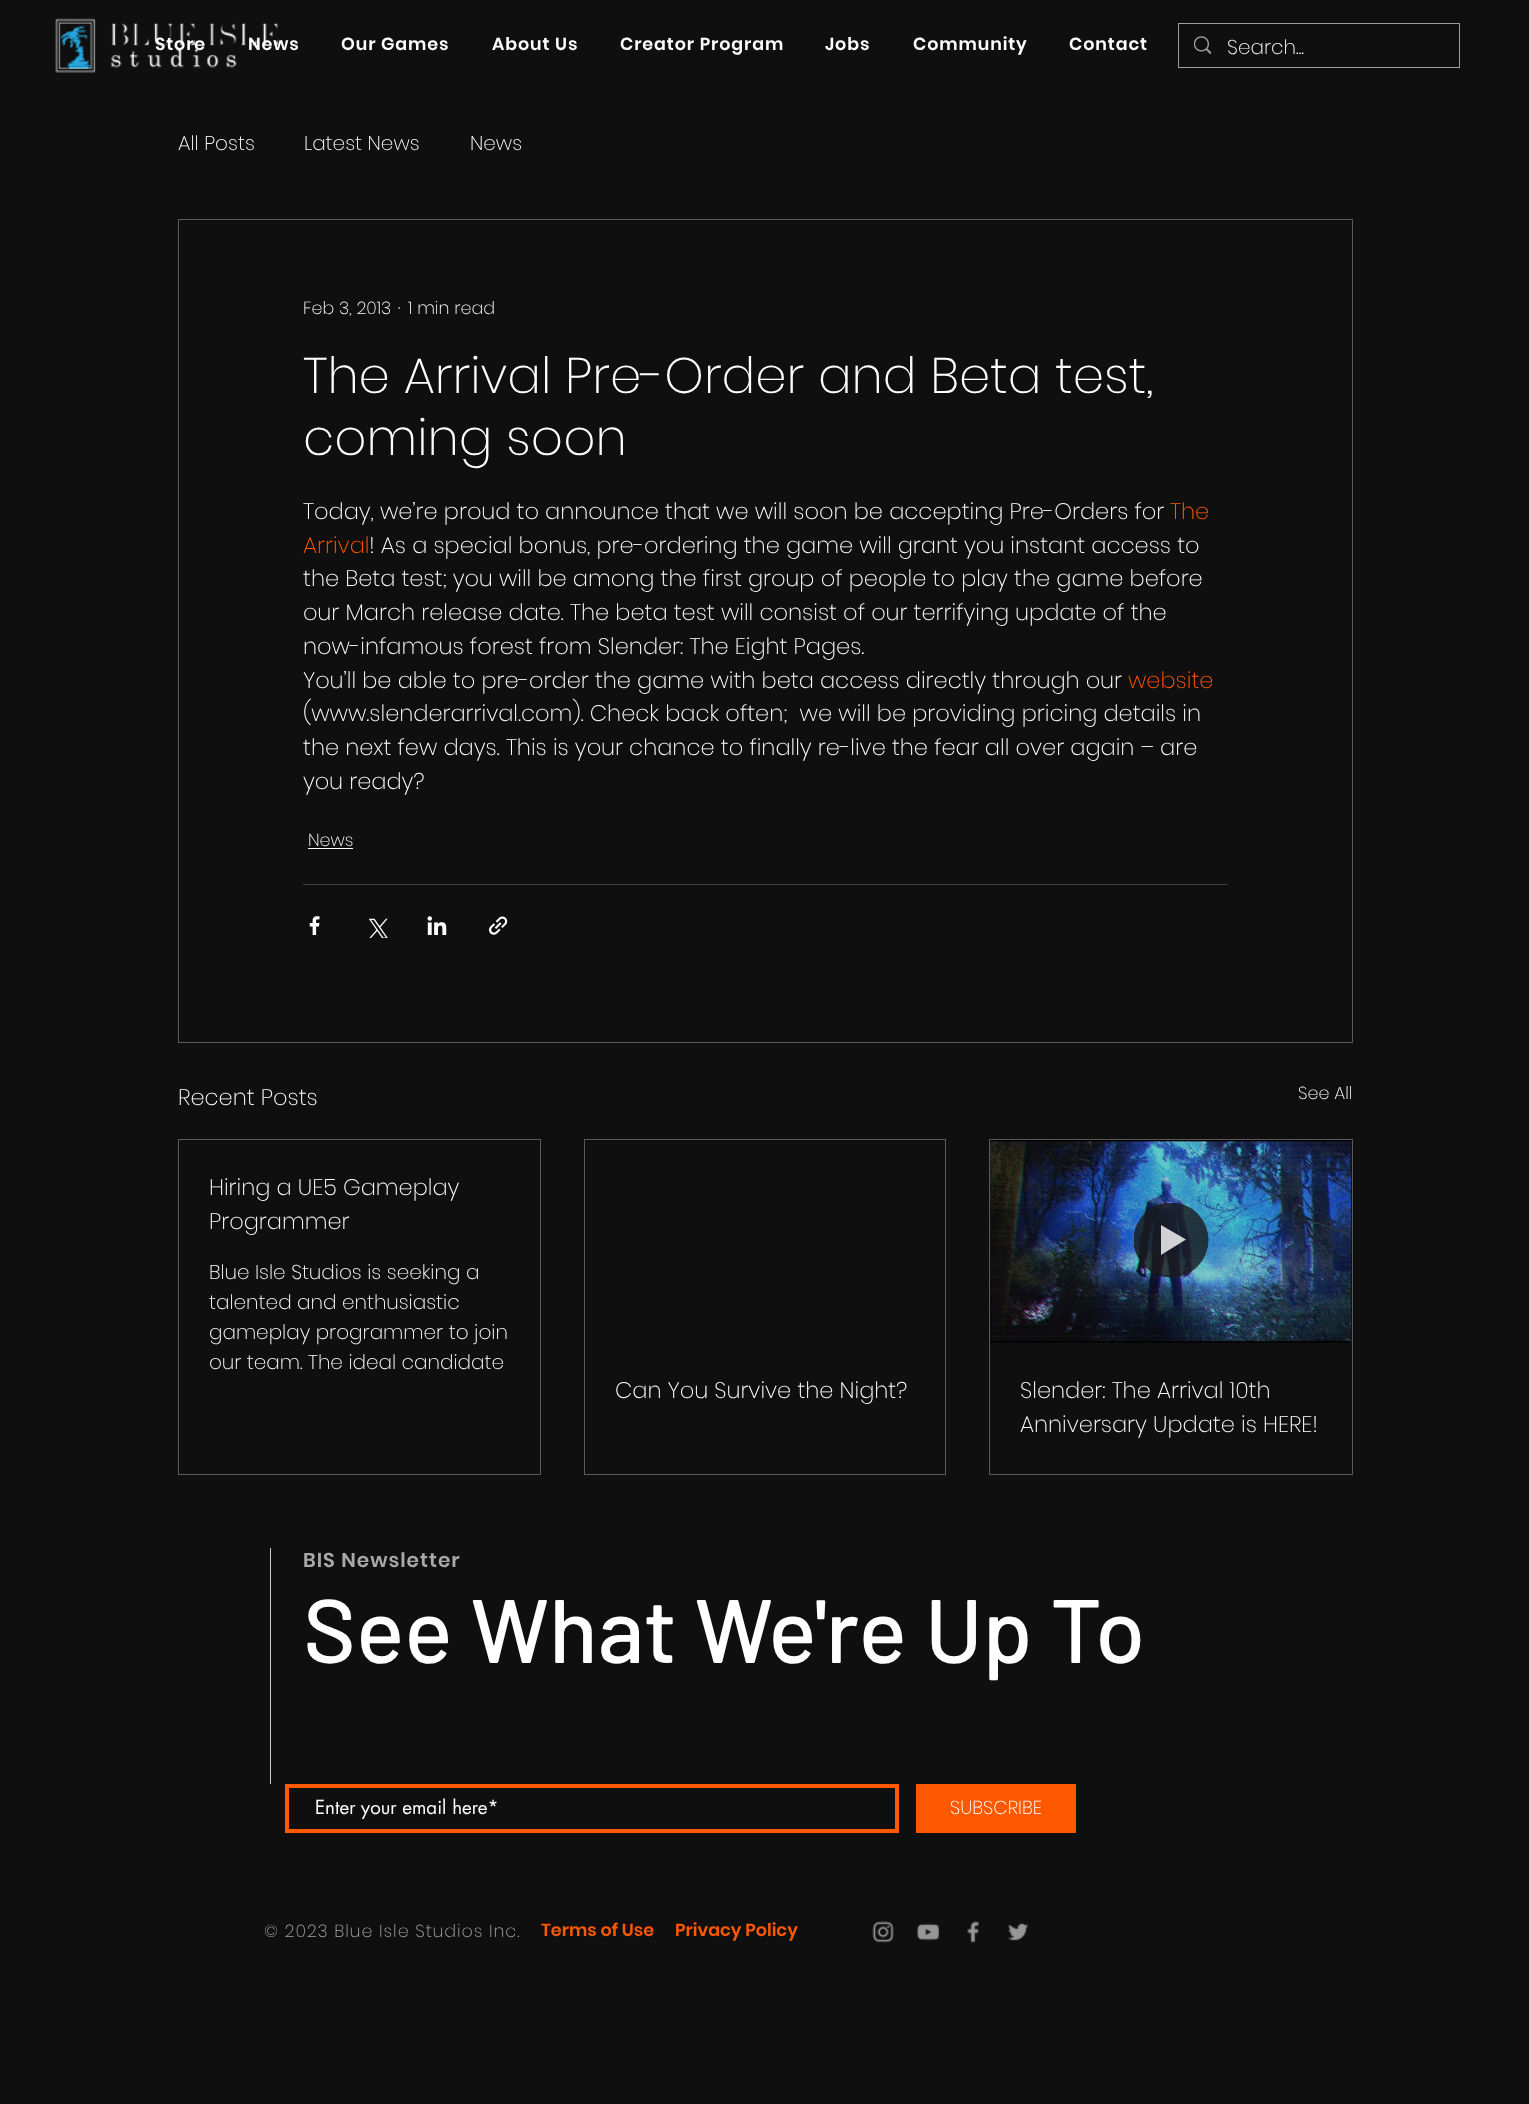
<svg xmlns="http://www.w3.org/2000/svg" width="1529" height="2104">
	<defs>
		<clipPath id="clip1"><rect x="1134" y="1203" width="75" height="75" /></clipPath>
	</defs>
	<rect width="100%" height="100%" fill="#0F0F0F" />
	<image x="55" y="18" width="224" height="55" href="assets/img1.png" />
	<g font-family="Poppins" font-size="17.5" font-weight="600" letter-spacing="0.9" fill="#FFFFFF">
		<text x="155" y="50">Store</text>
		<text x="248" y="50">News</text>
		<text x="341" y="50">Our Games</text>
		<text x="492" y="50">About Us</text>
		<text x="620" y="50">Creator Program</text>
		<text x="825" y="50">Jobs</text>
		<text x="913" y="50">Community</text>
		<text x="1069" y="50">Contact</text>
	</g>
	<rect x="1178.5" y="23.5" width="281" height="44" fill="none" stroke="#9F9F9F" />
	<image x="1194" y="36" width="17" height="18" href="assets/img2.png" />
	<g font-family="Poppins" font-size="20" font-weight="200" fill="#FFFFFF">
		<text x="1227" y="54">Search...</text>
		<text x="178" y="150">All Posts</text>
		<text x="304" y="150">Latest News</text>
		<text x="470" y="150">News</text>
	</g>
	<rect x="178.5" y="219.5" width="1174" height="823" fill="none" stroke="#5A5A5A" />
	<g font-family="Poppins" font-size="17.5" font-weight="200" fill="#FFFFFF">
		<text x="303" y="314">Feb 3, 2013</text>
		<text x="398" y="314">·</text>
		<text x="408" y="314">1 min read</text>
	</g>
	<g font-family="Poppins" font-size="50" font-weight="200" fill="#FFFFFF">
		<text x="303" y="393">The Arrival Pre-Order and Beta test,</text>
		<text x="303" y="455">coming soon</text>
	</g>
	<text x="303" y="519" font-family="Poppins" font-size="22.5" font-weight="200" fill="#FFFFFF">Today, we’re proud to announce that we will soon be accepting Pre-Orders for</text>
	<g font-family="Poppins" font-size="22.5" font-weight="200" fill="#FF5900">
		<text x="1170" y="519">The</text>
		<text x="303" y="553">Arrival</text>
	</g>
	<g font-family="Poppins" font-size="22.5" font-weight="200" fill="#FFFFFF">
		<text x="369" y="553">! As a special bonus, pre-ordering the game will grant you instant access to</text>
		<text x="303" y="586">the Beta test; you will be among the first group of people to play the game before</text>
		<text x="303" y="620">our March release date. The beta test will consist of our terrifying update of the</text>
		<text x="303" y="654">now-infamous forest from Slender: The Eight Pages.</text>
		<text x="303" y="688">You’ll be able to pre-order the game with beta access directly through our</text>
	</g>
	<text x="1128" y="688" font-family="Poppins" font-size="22.5" font-weight="200" fill="#FF5900">website</text>
	<g font-family="Poppins" font-size="22.5" font-weight="200" fill="#FFFFFF">
		<text x="303" y="721" xml:space="preserve">(www.slenderarrival.com). Check back often;  we will be providing pricing details in</text>
		<text x="303" y="755">the next few days. This is your chance to finally re-live the fear all over again – are</text>
		<text x="303" y="789">you ready?</text>
	</g>
	<text x="308" y="846" font-family="Poppins" font-size="17.5" font-weight="200" fill="#FFFFFF">News</text>
	<rect x="308" y="848" width="45" height="1" fill="#FFFFFF" />
	<rect x="303" y="884" width="925" height="1" fill="#3F3F3F" />
	<image x="309" y="916" width="11" height="19" href="assets/img3.png" />
	<image x="368" y="918" width="20" height="20" href="assets/img4.png" />
	<image x="427" y="916" width="20" height="19" href="assets/img5.png" />
	<image x="489" y="916" width="19" height="19" href="assets/img6.png" />
	<text x="178" y="1105" font-family="Poppins" font-size="22.5" font-weight="200" fill="#FFFFFF">Recent Posts</text>
	<text x="1298" y="1099" font-family="Poppins" font-size="17.5" font-weight="200" fill="#FFFFFF">See All</text>
	<rect x="178.5" y="1139.5" width="362" height="335" fill="none" stroke="#5A5A5A" />
	<g font-family="Poppins" font-size="22.5" font-weight="200" fill="#FFFFFF">
		<text x="209" y="1195">Hiring a UE5 Gameplay</text>
		<text x="209" y="1229">Programmer</text>
	</g>
	<g font-family="Poppins" font-size="20" font-weight="200" fill="#FFFFFF">
		<text x="209" y="1279">Blue Isle Studios is seeking a</text>
		<text x="209" y="1309">talented and enthusiastic</text>
		<text x="209" y="1339">gameplay programmer to join</text>
		<text x="209" y="1369">our team. The ideal candidate</text>
	</g>
	<rect x="584.5" y="1139.5" width="361" height="335" fill="none" stroke="#5A5A5A" />
	<text x="615" y="1398" font-family="Poppins" font-size="22.5" font-weight="200" fill="#FFFFFF">Can You Survive the Night?</text>
	<rect x="990" y="1342" width="361" height="1" fill="#0C0C0C" />
	<rect x="989.5" y="1139.5" width="363" height="335" fill="none" stroke="#5A5A5A" />
	<image x="990" y="1140" width="362" height="203" href="assets/img7.png" />
	<g clip-path="url(#clip1)">
		<circle cx="1171" cy="1240" r="37.5" fill="#1A1A1A" fill-opacity="0.8" />
	</g>
	<path d="M1161 1225V1255L1186 1239.5Z" fill="#FFFFFF" fill-opacity="0.8" />
	<g font-family="Poppins" font-size="22.5" font-weight="200" fill="#FFFFFF">
		<text x="1020" y="1398">Slender: The Arrival 10th</text>
		<text x="1020" y="1432">Anniversary Update is HERE!</text>
	</g>
	<rect x="270" y="1548" width="1" height="236" fill="#CCCACA" />
	<text x="303" y="1567" font-family="Poppins" font-size="20" font-weight="600" letter-spacing="1" fill="#A8A8A8">BIS Newsletter</text>
	<text x="303" y="1663" font-family="Barlow" font-size="90" font-weight="500" fill="#FFFFFF">See What We're Up To</text>
	<rect x="287" y="1786" width="610" height="45" fill="none" stroke="#FF5900" stroke-width="4" />
	<text x="315" y="1814" font-family="futura" font-size="18.75" fill="#FFFFFF">Enter your email here*</text>
	<rect x="916" y="1784" width="160" height="49" fill="#FF5900" />
	<text x="950" y="1814" font-family="Poppins" font-size="18.75" font-weight="200" fill="#FFFFFF">SUBSCRIBE</text>
	<text x="264" y="1937" font-family="Poppins" font-size="17.5" font-weight="200" letter-spacing="0.9" fill="#A8A8A8">© 2023 Blue Isle Studios Inc.</text>
	<g font-family="Poppins" font-size="17.5" font-weight="600" fill="#FF5900">
		<text x="541" y="1936">Terms of Use</text>
		<text x="675" y="1936">Privacy Policy</text>
	</g>
	<image x="872" y="1921" width="22" height="22" href="assets/img8.png" />
	<image x="917" y="1923" width="23" height="18" href="assets/img9.png" />
	<image x="967" y="1921" width="12" height="22" href="assets/img10.png" />
	<image x="1008" y="1923" width="20" height="18" href="assets/img11.png" />
</svg>
